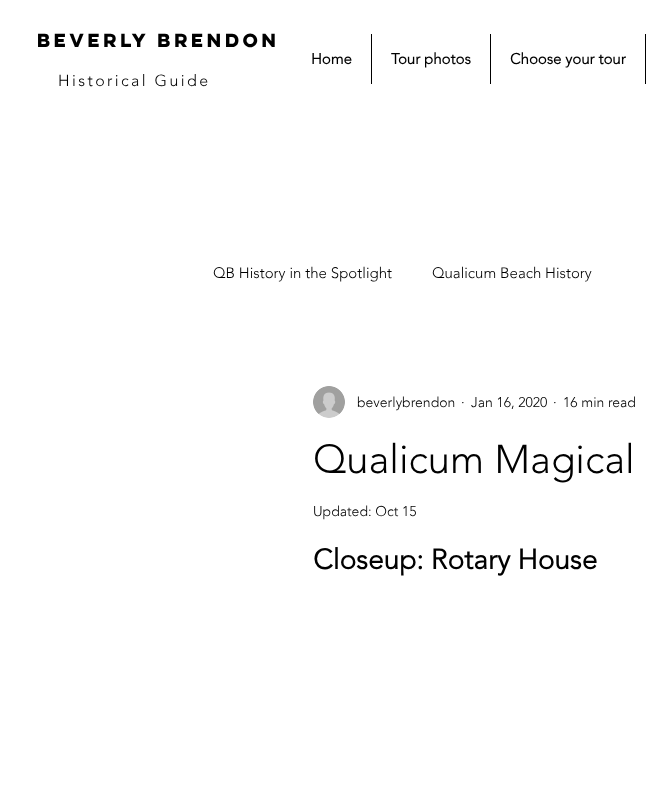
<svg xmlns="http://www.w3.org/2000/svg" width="655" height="787">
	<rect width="100%" height="100%" fill="#FFFFFF" />
	<text x="37" y="47" font-family="'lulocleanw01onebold'" font-size="17" font-weight="700" fill="#000000">Beverly Brendon</text>
	<text x="311" y="64" font-family="'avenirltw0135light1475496'" font-size="15" font-weight="700" fill="#000000">Home</text>
	<rect x="371" y="34" width="1" height="50" fill="#000000" />
	<text x="391" y="64" font-family="'avenirltw0135light1475496'" font-size="15" font-weight="700" fill="#000000">Tour photos</text>
	<rect x="490" y="34" width="1" height="50" fill="#000000" />
	<text x="510" y="64" font-family="'avenirltw0135light1475496'" font-size="15" font-weight="700" fill="#000000">Choose your tour</text>
	<rect x="645" y="34" width="1" height="50" fill="#000000" />
	<text x="58" y="86" font-family="'avenirltw0135light1475496'" font-size="16" font-weight="300" letter-spacing="2.4" fill="#000000">Historical Guide</text>
	<g font-family="'avenirltw0135light1475496'" font-size="15" font-weight="300" fill="#000000">
		<text x="213" y="278">QB History in the Spotlight</text>
		<text x="432" y="278">Qualicum Beach History</text>
	</g>
	<image x="313" y="386" width="32" height="32" href="assets/img1.png" />
	<g font-family="'avenirltw0135light1475496'" font-size="14" font-weight="300" fill="#000000">
		<text x="357" y="407">beverlybrendon</text>
		<text x="461" y="407">·</text>
		<text x="471" y="407">Jan 16, 2020</text>
		<text x="553" y="407">·</text>
		<text x="563" y="407">16 min read</text>
	</g>
	<text x="313" y="473" font-family="'avenirltw0135light1475496'" font-size="40" font-weight="300" fill="#000000">Qualicum Magical</text>
	<text x="313" y="516" font-family="'avenirltw0135light1475496'" font-size="14" font-weight="300" fill="#000000">Updated: Oct 15</text>
	<text x="313" y="569" font-family="'avenirltw0135light1475496'" font-size="28" font-weight="700" fill="#000000">Closeup: Rotary House</text>
</svg>
